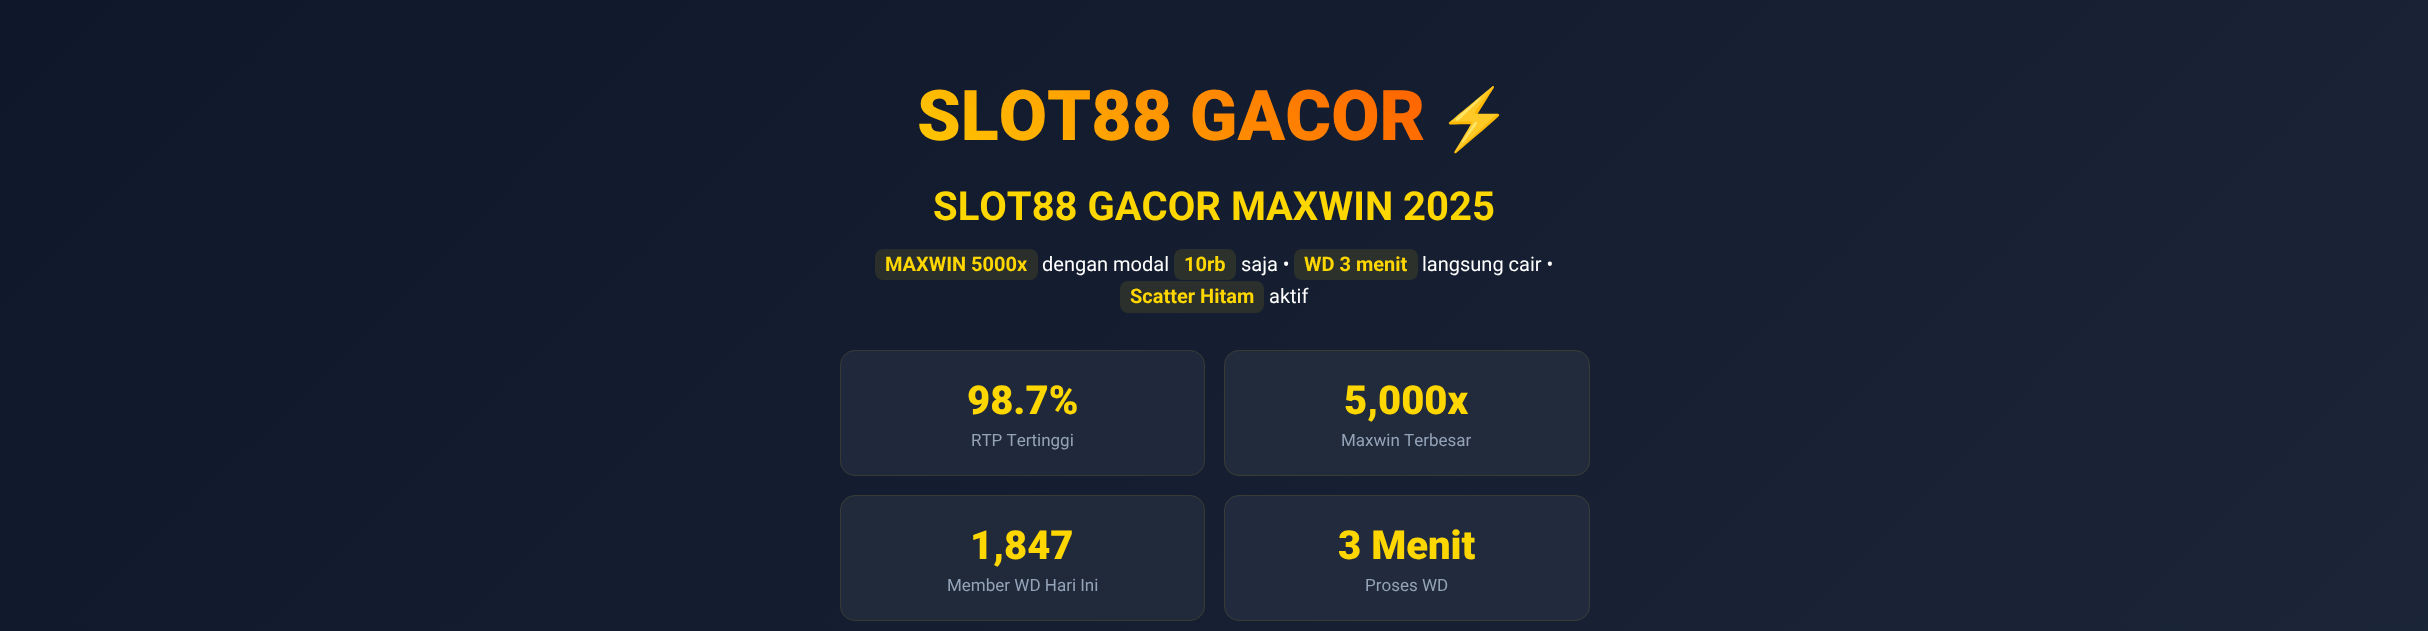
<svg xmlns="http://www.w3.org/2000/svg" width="2428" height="631">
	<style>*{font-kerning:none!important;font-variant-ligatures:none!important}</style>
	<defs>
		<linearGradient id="g1" gradientUnits="userSpaceOnUse" x1="1006" y1="324" x2="1423" y2="-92"><stop offset="0" stop-color="#FFD700" /><stop offset="0.5" stop-color="#FF8C00" /><stop offset="1" stop-color="#FF4500" /></linearGradient>
		<linearGradient id="g2" gradientUnits="userSpaceOnUse" x1="240" y1="-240" x2="2189" y2="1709"><stop offset="0" stop-color="#0F172A" /><stop offset="1" stop-color="#1E293B" /></linearGradient>
	</defs>
	<rect width="100%" height="100%" fill="#FFFFFF" />
	<rect x="0" y="0" width="2428" height="631" fill="url(#g2)" />
	<text x="917" y="140" font-family="Roboto" font-size="70" font-weight="900" fill="url(#g1)">SLOT88 GACOR</text>
	<text x="1437" y="140" font-family="Noto Color Emoji" font-size="60" font-weight="700" fill="#FFD700">⚡</text>
	<text x="933" y="220" font-family="Roboto" font-size="40" font-weight="700" fill="#FFD700">SLOT88 GACOR MAXWIN 2025</text>
	<rect x="875" y="249" width="163" height="31" rx="8" fill="#2B2F2B" />
	<text x="885" y="271" font-family="Roboto" font-size="20" font-weight="700" fill="#FFD700">MAXWIN 5000x</text>
	<text x="1042" y="271" font-family="Roboto" font-size="20" fill="#FFFFFF">dengan modal</text>
	<rect x="1174" y="249" width="62" height="31" rx="8" fill="#2C312B" />
	<text x="1184" y="271" font-family="Roboto" font-size="20" font-weight="700" fill="#FFD700">10rb</text>
	<text x="1241" y="271" font-family="Roboto" font-size="20" fill="#FFFFFF">saja •</text>
	<rect x="1294" y="249" width="124" height="31" rx="8" fill="#2C312C" />
	<text x="1304" y="271" font-family="Roboto" font-size="20" font-weight="700" fill="#FFD700">WD 3 menit</text>
	<text x="1422" y="271" font-family="Roboto" font-size="20" fill="#FFFFFF">langsung cair •</text>
	<rect x="1120" y="281" width="144" height="32" rx="8" fill="#2C302C" />
	<text x="1130" y="303" font-family="Roboto" font-size="20" font-weight="700" fill="#FFD700">Scatter Hitam</text>
	<text x="1269" y="303" font-family="Roboto" font-size="20" fill="#FFFFFF">aktif</text>
	<rect x="840" y="350" width="365" height="126" rx="15" fill="#20293B" />
	<rect x="840.5" y="350.5" width="364" height="125" rx="14.5" fill="none" stroke="#FFD700" stroke-opacity="0.1" />
	<text x="967" y="414" font-family="Roboto" font-size="40" font-weight="900" fill="#FFD700">98.7%</text>
	<text x="971" y="446" font-family="Roboto" font-size="17" fill="#94A3B8">RTP Tertinggi</text>
	<rect x="1224" y="350" width="366" height="126" rx="15" fill="#222B3C" />
	<rect x="1224.5" y="350.5" width="365" height="125" rx="14.5" fill="none" stroke="#FFD700" stroke-opacity="0.1" />
	<text x="1344" y="414" font-family="Roboto" font-size="40" font-weight="900" fill="#FFD700">5,000x</text>
	<text x="1341" y="446" font-family="Roboto" font-size="17" fill="#94A3B8">Maxwin Terbesar</text>
	<rect x="840" y="495" width="365" height="126" rx="15" fill="#212A3B" />
	<rect x="840.5" y="495.5" width="364" height="125" rx="14.5" fill="none" stroke="#FFD700" stroke-opacity="0.1" />
	<text x="970" y="559" font-family="Roboto" font-size="40" font-weight="900" fill="#FFD700">1,847</text>
	<text x="947" y="591" font-family="Roboto" font-size="17" fill="#94A3B8">Member WD Hari Ini</text>
	<rect x="1224" y="495" width="366" height="126" rx="15" fill="#222B3D" />
	<rect x="1224.5" y="495.5" width="365" height="125" rx="14.5" fill="none" stroke="#FFD700" stroke-opacity="0.1" />
	<text x="1338" y="559" font-family="Roboto" font-size="40" font-weight="900" fill="#FFD700">3 Menit</text>
	<text x="1365" y="591" font-family="Roboto" font-size="17" fill="#94A3B8">Proses WD</text>
</svg>
